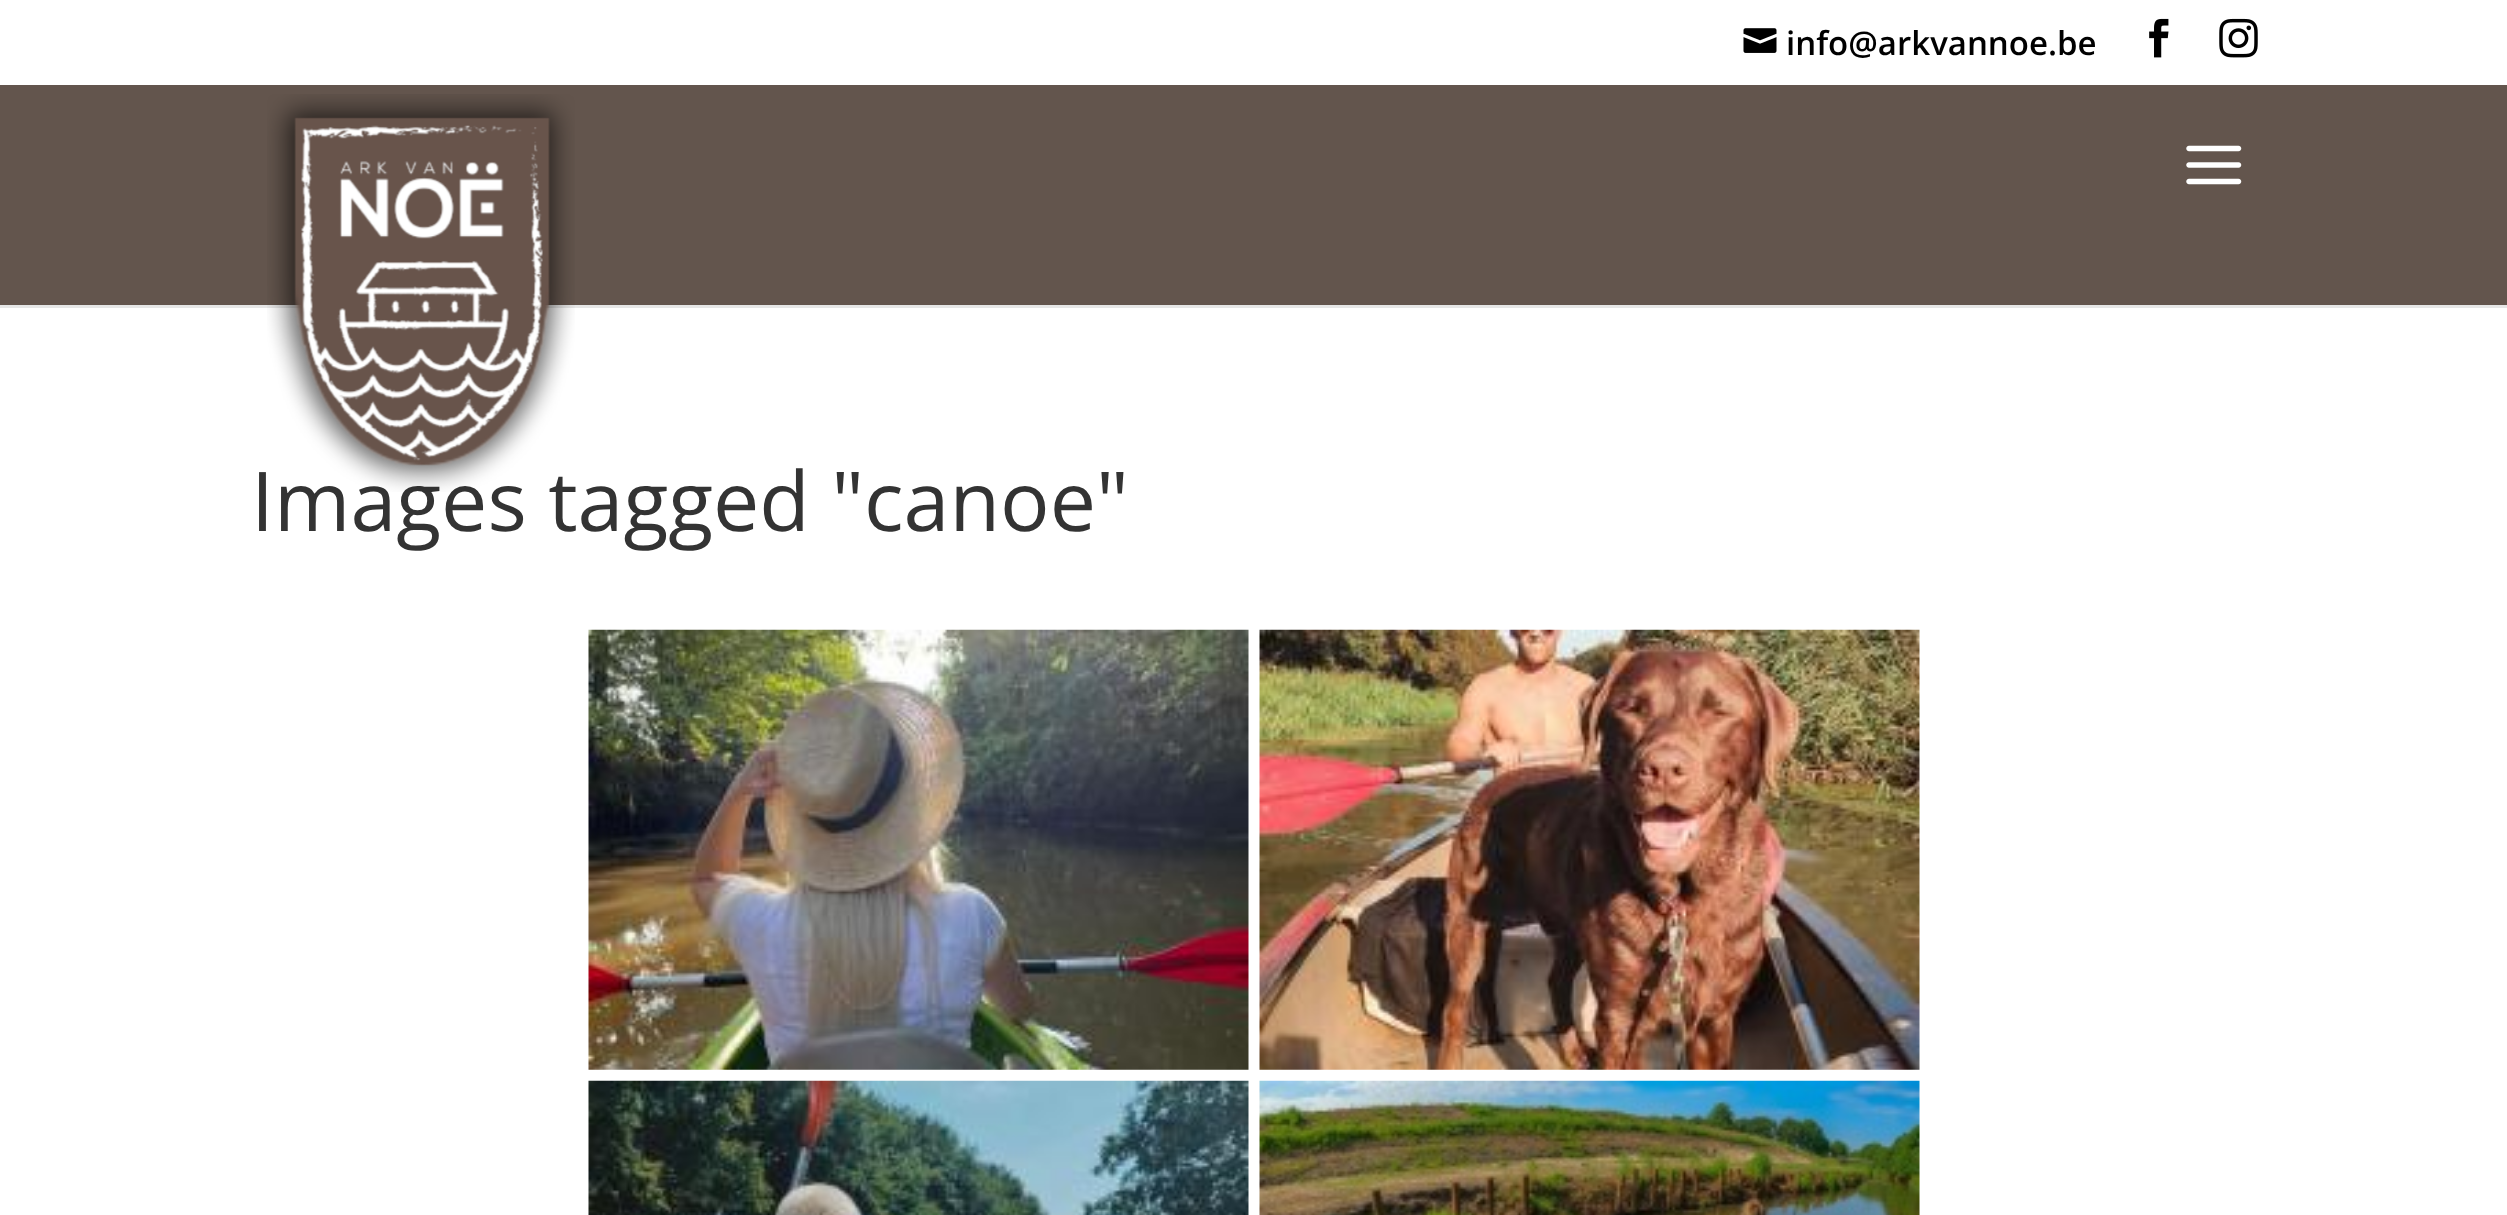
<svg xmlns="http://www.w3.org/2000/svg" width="2507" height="1215">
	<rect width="100%" height="100%" fill="#FFFFFF" />
	<image x="1743" y="28" width="34" height="25" href="assets/img1.png" />
	<text x="1786" y="55" font-family="Open Sans" font-size="33" font-weight="600" fill="#000000">info@arkvannoe.be</text>
	<image x="2149" y="18" width="20" height="40" href="assets/img2.png" />
	<image x="2219" y="18" width="39" height="40" href="assets/img3.png" />
	<rect x="0" y="305" width="2507" height="3" fill="#E6E6E6" />
	<rect x="0" y="85" width="2507" height="220" fill="#63554D" />
	<text x="251" y="531" font-family="Open Sans" font-size="82.5" fill="#333333">Images tagged "canoe"</text>
	<image x="267" y="94" width="308" height="398" href="assets/img4.png" />
	<image x="2186" y="145" width="56" height="40" href="assets/img5.png" />
	<image x="588" y="629" width="661" height="441" href="assets/img6.png" />
	<image x="1259" y="629" width="661" height="441" href="assets/img7.png" />
	<image x="588" y="1080" width="661" height="135" href="assets/img8.png" />
	<image x="1259" y="1080" width="661" height="135" href="assets/img9.png" />
</svg>
